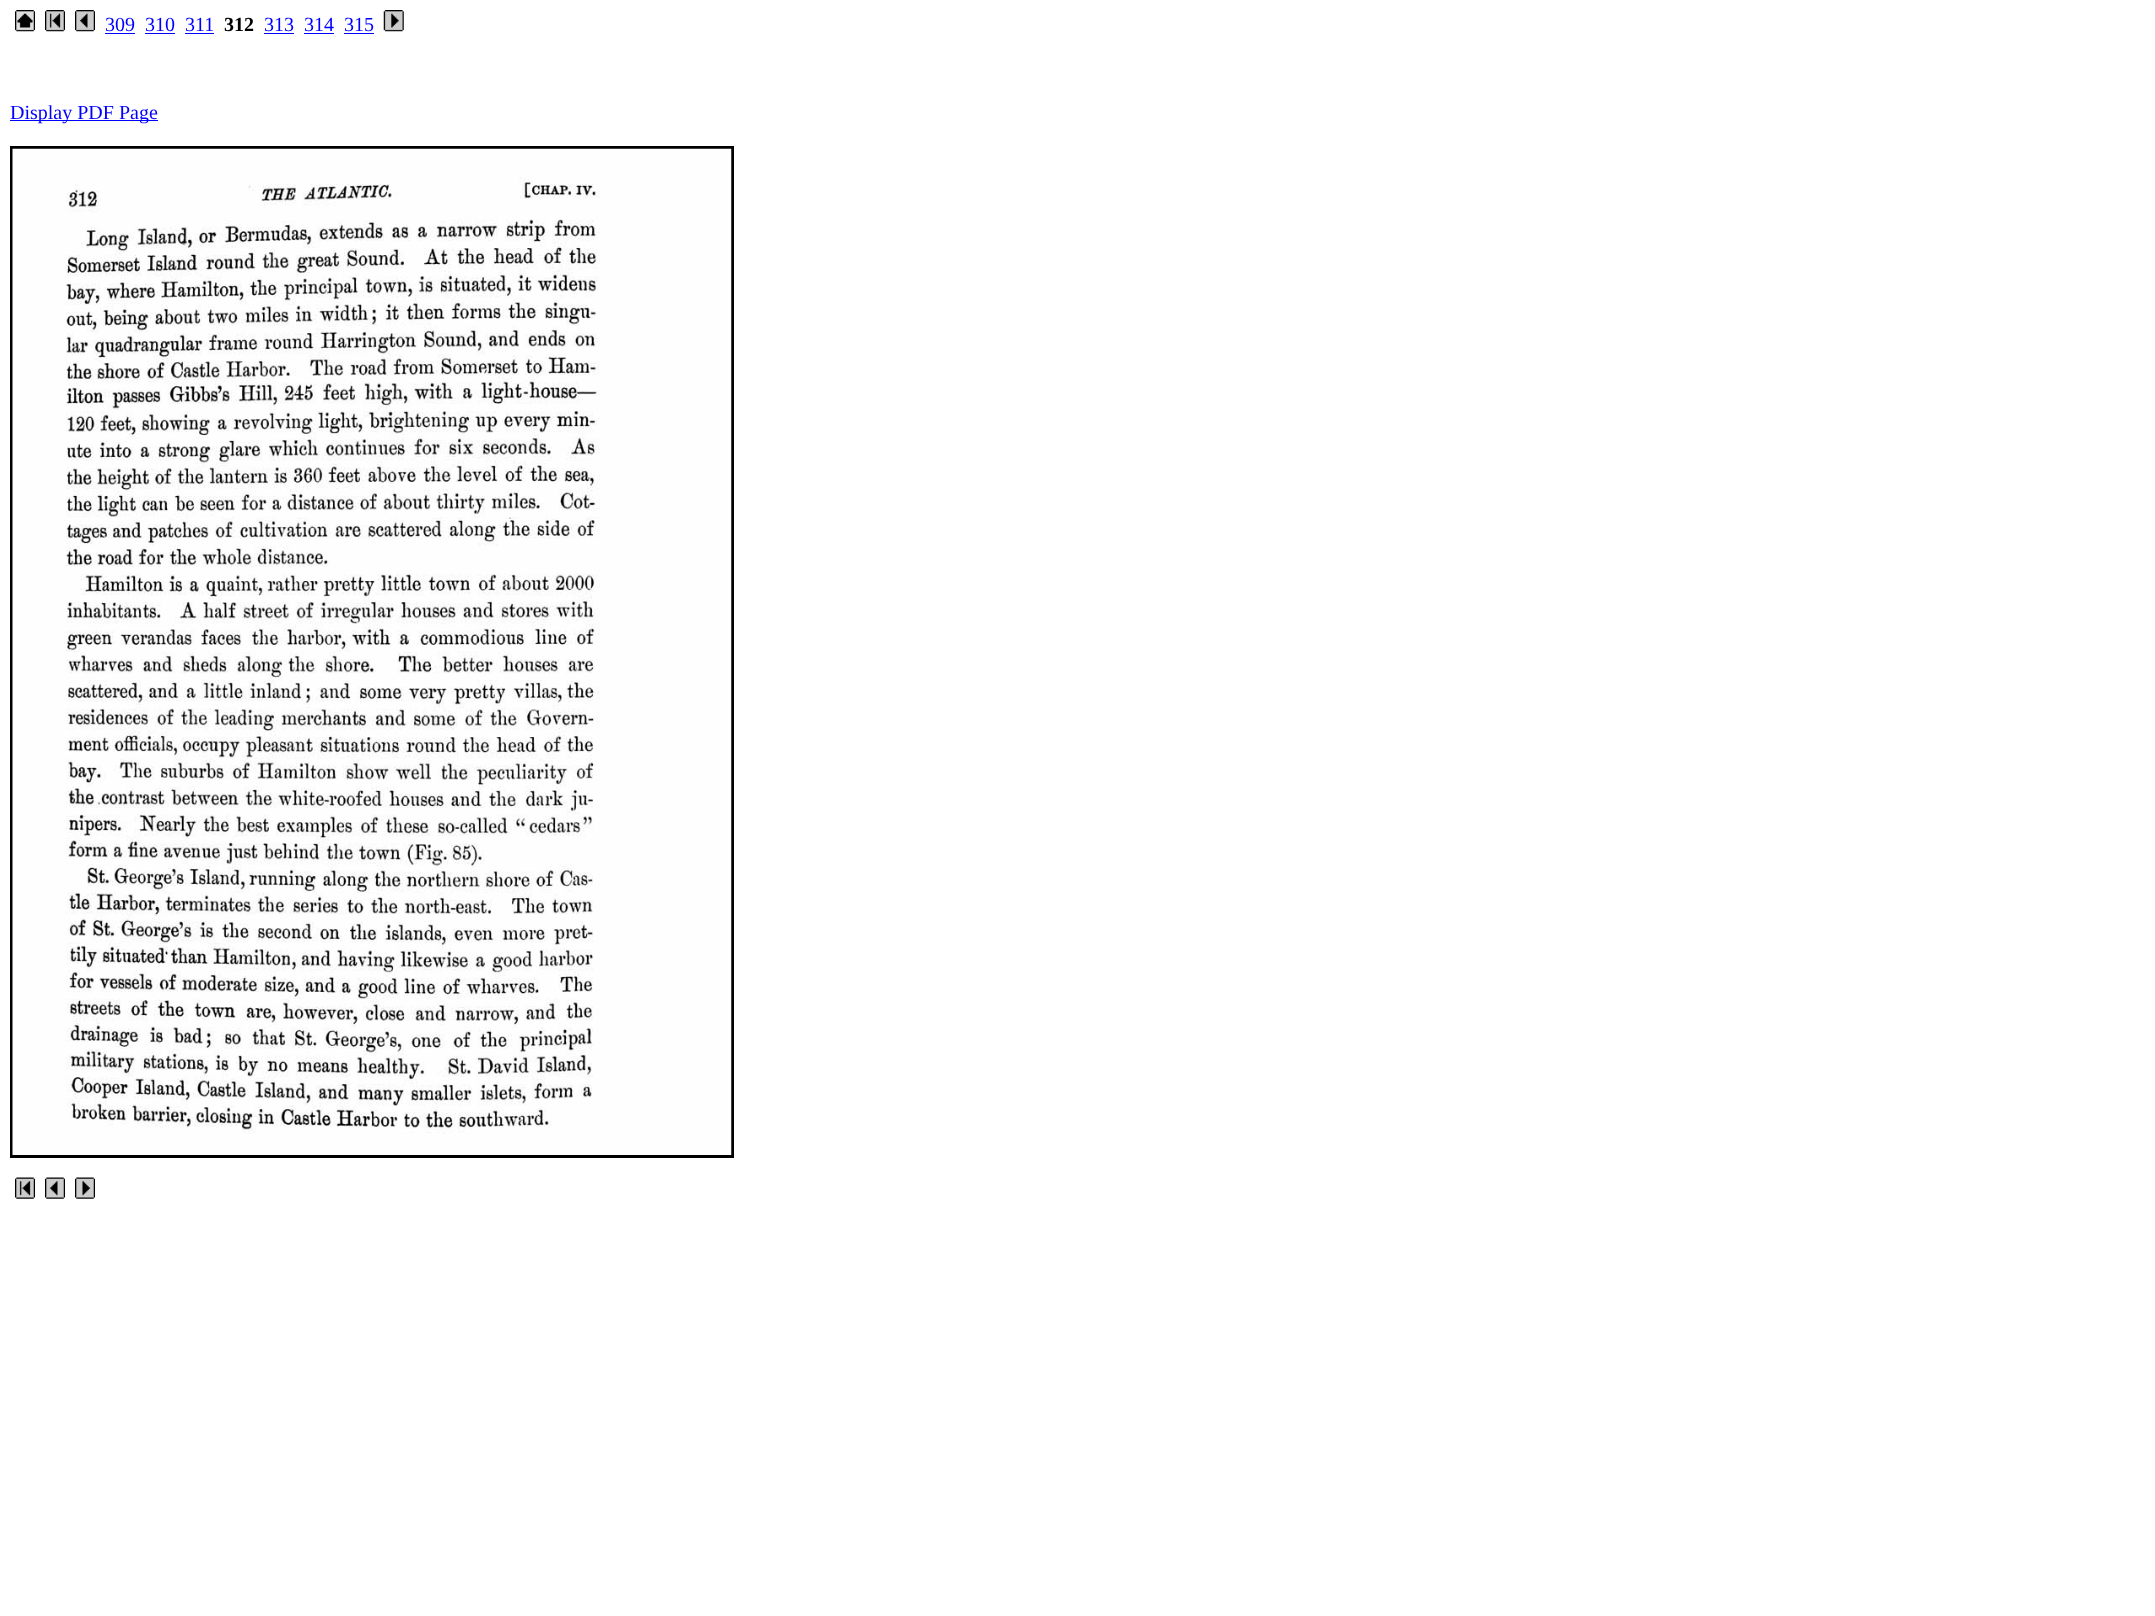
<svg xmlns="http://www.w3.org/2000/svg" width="2155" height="1616">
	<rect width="100%" height="100%" fill="#FFFFFF" />
	<image x="15" y="10" width="20" height="22" href="assets/img1.png" />
	<image x="45" y="10" width="20" height="22" href="assets/img2.png" />
	<image x="75" y="10" width="20" height="22" href="assets/img3.png" />
	<text x="105" y="31" font-family="Liberation Serif" font-size="20" fill="#0000FF">309</text>
	<rect x="105" y="33" width="30" height="1" fill="#0000FF" />
	<text x="145" y="31" font-family="Liberation Serif" font-size="20" fill="#0000FF">310</text>
	<rect x="145" y="33" width="30" height="1" fill="#0000FF" />
	<text x="185" y="31" font-family="Liberation Serif" font-size="20" fill="#0000FF">311</text>
	<rect x="185" y="33" width="29" height="1" fill="#0000FF" />
	<text x="224" y="31" font-family="Liberation Serif" font-size="20" font-weight="700" fill="#000000">312</text>
	<text x="264" y="31" font-family="Liberation Serif" font-size="20" fill="#0000FF">313</text>
	<rect x="264" y="33" width="30" height="1" fill="#0000FF" />
	<text x="304" y="31" font-family="Liberation Serif" font-size="20" fill="#0000FF">314</text>
	<rect x="304" y="33" width="30" height="1" fill="#0000FF" />
	<text x="344" y="31" font-family="Liberation Serif" font-size="20" fill="#0000FF">315</text>
	<rect x="344" y="33" width="30" height="1" fill="#0000FF" />
	<image x="383" y="10" width="21" height="22" href="assets/img4.png" />
	<rect x="10" y="120" width="148" height="1" fill="#0000FF" />
	<text x="10" y="119" font-family="Liberation Serif" font-size="20" fill="#0000FF">Display PDF Page</text>
	<rect x="11.5" y="147.5" width="721" height="1009" fill="none" stroke="#000000" stroke-width="3" />
	<image x="12" y="148" width="720" height="1007" href="assets/img5.png" />
	<image x="15" y="1177" width="20" height="22" href="assets/img6.png" />
	<image x="45" y="1177" width="20" height="22" href="assets/img7.png" />
	<image x="75" y="1177" width="20" height="22" href="assets/img8.png" />
</svg>
